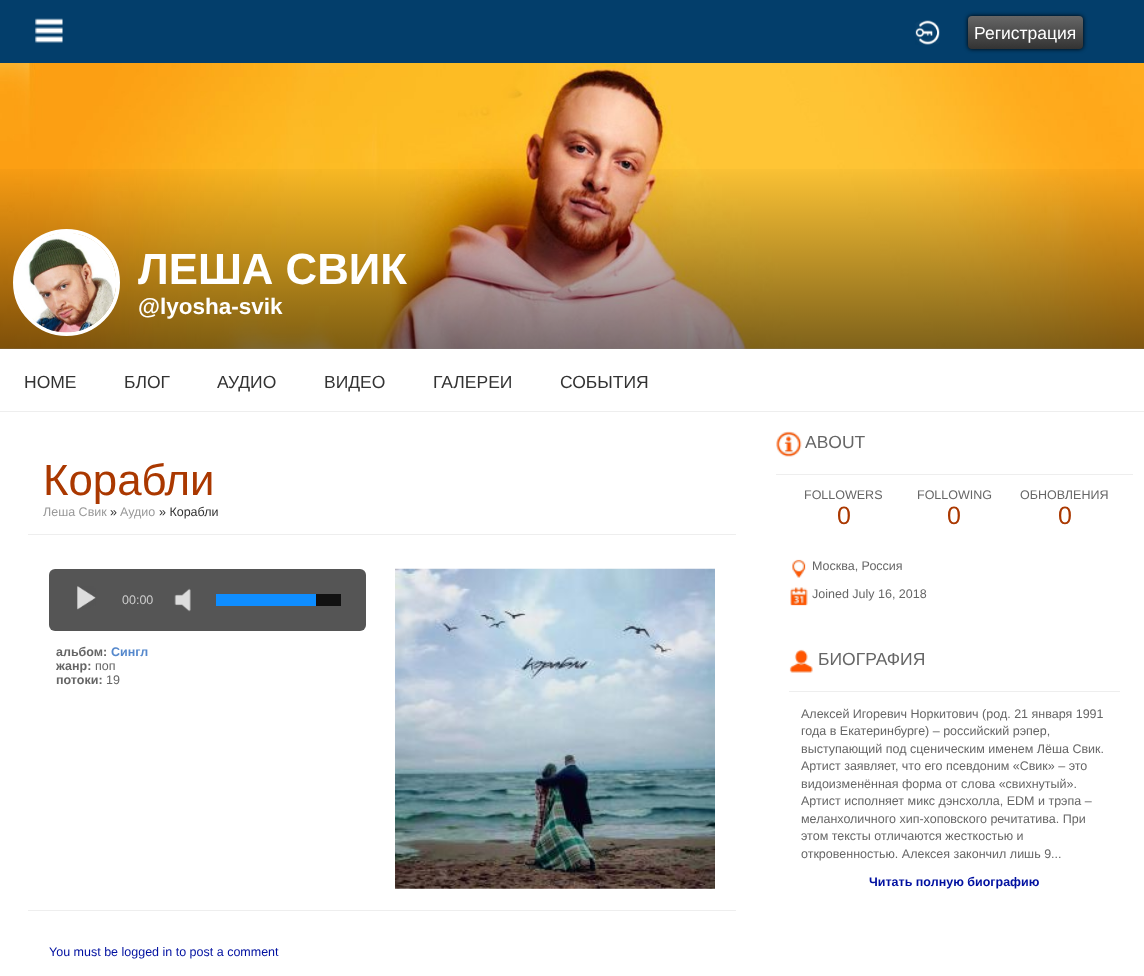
async function draw(canvas) {
	canvas.width = 1144;
	canvas.height = 976;
	const c = canvas.getContext('2d');
	c.miterLimit = 4;
	c.fontKerning = 'normal';
	async function loadImage(src) {
		const img = new Image();
		img.src = src;
		await img.decode();
		return img;
	}
	let gradient;

	c.fillStyle = '#fff';
	c.fillRect(0, 0, 1144, 976);
	c.fillStyle = '#033e6b';
	c.fillRect(0, 0, 1144, 63);
	c.drawImage(await loadImage('img1.png'), 35, 18, 28, 25);
	c.drawImage(await loadImage('img2.png'), 915, 20, 25, 25);
	c.fillStyle = '#000';
	c.filter = 'blur(2px)';
	c.beginPath();
	c.roundRect(968, 16, 115, 33, 4);
	c.fill();
	c.filter = 'none';
	gradient = c.createLinearGradient(1025, 16, 1025, 49);
	gradient.addColorStop(0, '#666');
	gradient.addColorStop(1, '#333');
	c.fillStyle = gradient;
	c.beginPath();
	c.roundRect(968, 16, 115, 33, 4);
	c.fill();
	c.font = '17.5px Liberation Sans';
	c.fillStyle = '#fff';
	c.fillText('Регистрация', 974, 39);
	c.drawImage(await loadImage('img3.png'), 0, 63, 1144, 286);
	gradient = c.createLinearGradient(573, 161, 573, 349);
	gradient.addColorStop(0, '#00000000');
	gradient.addColorStop(1, '#00000080');
	c.fillStyle = gradient;
	c.fillRect(0, 169, 1144, 180);
	c.beginPath();
	c.arc(66.5, 282.5, 51.5, 0, 2 * Math.PI);
	c.strokeStyle = '#fff';
	c.lineWidth = 4;
	c.stroke();
	c.drawImage(await loadImage('img4.png'), 17, 233, 99, 100);
	c.font = 'bold 43.75px Liberation Sans';
	c.fillStyle = '#fff';
	c.fillText('ЛЕША СВИК', 138, 284);
	c.font = 'bold 22.5px Liberation Sans';
	c.fillText('@lyosha-svik', 138, 314);
	c.fillStyle = '#eee';
	c.fillRect(0, 411, 1144, 1);
	c.font = '17.5px Liberation Sans';
	c.fillStyle = '#333';
	for (const [text, x, y] of [
		['HOME', 24, 388],
		['БЛОГ', 124, 388],
		['АУДИО', 217, 388],
		['ВИДЕО', 324, 388],
		['ГАЛЕРЕИ', 433, 388],
		['СОБЫТИЯ', 560, 388],
	]) {
		c.fillText(text, x, y);
	}
	c.fillStyle = '#eee';
	c.fillRect(28, 534, 708, 1);
	c.font = '43.75px Liberation Sans';
	c.fillStyle = '#aa3800';
	c.fillText('Корабли', 43, 495);
	c.font = '12.5px Liberation Sans';
	c.fillStyle = '#999';
	c.fillText('Леша Свик', 43, 516);
	c.fillStyle = '#333';
	c.fillText('»', 110, 516);
	c.fillStyle = '#999';
	c.fillText('Аудио', 120, 516);
	c.fillStyle = '#333';
	c.fillText('» Корабли', 159, 516);
	c.fillStyle = '#eee';
	c.fillRect(28, 910, 708, 1);
	c.fillStyle = '#555';
	c.beginPath();
	c.roundRect(49, 569, 317, 62, 6);
	c.fill();
	c.drawImage(await loadImage('img5.png'), 77, 586, 19, 24);
	c.fillStyle = '#ccc';
	c.fillText('00:00', 122, 604);
	c.drawImage(await loadImage('img6.png'), 174, 588, 17, 24);
	c.fillStyle = '#111';
	c.fillRect(316, 594, 25, 12);
	c.fillStyle = '#0e8dff';
	c.fillRect(216, 594, 100, 12);
	c.font = 'bold 12.5px Liberation Sans';
	c.fillStyle = '#666';
	c.fillText('альбом:', 56, 656);
	c.fillStyle = '#58c';
	c.fillText('Сингл', 111, 656);
	c.fillStyle = '#666';
	c.fillText('жанр:', 56, 670);
	c.font = '12.5px Liberation Sans';
	c.fillText('поп', 95, 670);
	c.font = 'bold 12.5px Liberation Sans';
	c.fillText('потоки:', 56, 684);
	c.font = '12.5px Liberation Sans';
	c.fillText('19', 106, 684);
	c.drawImage(await loadImage('img7.png'), 395, 568, 320, 321);
	c.fillStyle = '#0010a0';
	c.fillText('You must be logged in to post a comment', 49, 956);
	c.fillStyle = '#eee';
	c.fillRect(776, 474, 357, 1);
	c.drawImage(await loadImage('img8.png'), 776, 431, 26, 26);
	c.font = '17.5px Liberation Sans';
	c.fillStyle = '#666';
	c.fillText('ABOUT', 805, 448);
	c.font = '12.5px Liberation Sans';
	c.fillText('FOLLOWERS', 804, 499);
	c.font = '25px Liberation Sans';
	c.fillStyle = '#aa3800';
	c.fillText('0', 837, 524);
	c.font = '12.5px Liberation Sans';
	c.fillStyle = '#666';
	c.fillText('FOLLOWING', 917, 499);
	c.font = '25px Liberation Sans';
	c.fillStyle = '#aa3800';
	c.fillText('0', 947, 524);
	c.font = '12.5px Liberation Sans';
	c.fillStyle = '#666';
	c.fillText('ОБНОВЛЕНИЯ', 1020, 499);
	c.font = '25px Liberation Sans';
	c.fillStyle = '#aa3800';
	c.fillText('0', 1058, 524);
	c.drawImage(await loadImage('img9.png'), 792, 559, 14, 19);
	c.font = '12.5px Liberation Sans';
	c.fillStyle = '#666';
	c.fillText('Москва, Россия', 812, 570);
	c.drawImage(await loadImage('img10.png'), 790, 587, 18, 19);
	c.fillText('Joined July 16, 2018', 812, 598);
	c.fillStyle = '#eee';
	c.fillRect(789, 691, 331, 1);
	c.drawImage(await loadImage('img11.png'), 789, 649, 24, 24);
	c.font = '17.5px Liberation Sans';
	c.fillStyle = '#666';
	c.fillText('БИОГРАФИЯ', 818, 665);
	c.font = '12.5px Liberation Sans';
	for (const [text, x, y] of [
		['Алексей Игоревич Норкитович (род. 21 января 1991', 801, 718],
		['года в Екатеринбурге) – российский рэпер,', 801, 735],
		['выступающий под сценическим именем Лёша Свик.', 801, 753],
		['Артист заявляет, что его псевдоним «Свик» – это', 801, 770],
		['видоизменённая форма от слова «свихнутый».', 801, 788],
		['Артист исполняет микс дэнсхолла, EDM и трэпа –', 801, 805],
		['меланхоличного хип-хоповского речитатива. При', 801, 823],
		['этом тексты отличаются жесткостью и', 801, 840],
		['откровенностью. Алексея закончил лишь 9...', 801, 858],
	]) {
		c.fillText(text, x, y);
	}
	c.font = 'bold 12.5px Liberation Sans';
	c.fillStyle = '#0010a0';
	c.fillText('Читать полную биографию', 869, 886);
}

draw(document.querySelector('canvas'));
